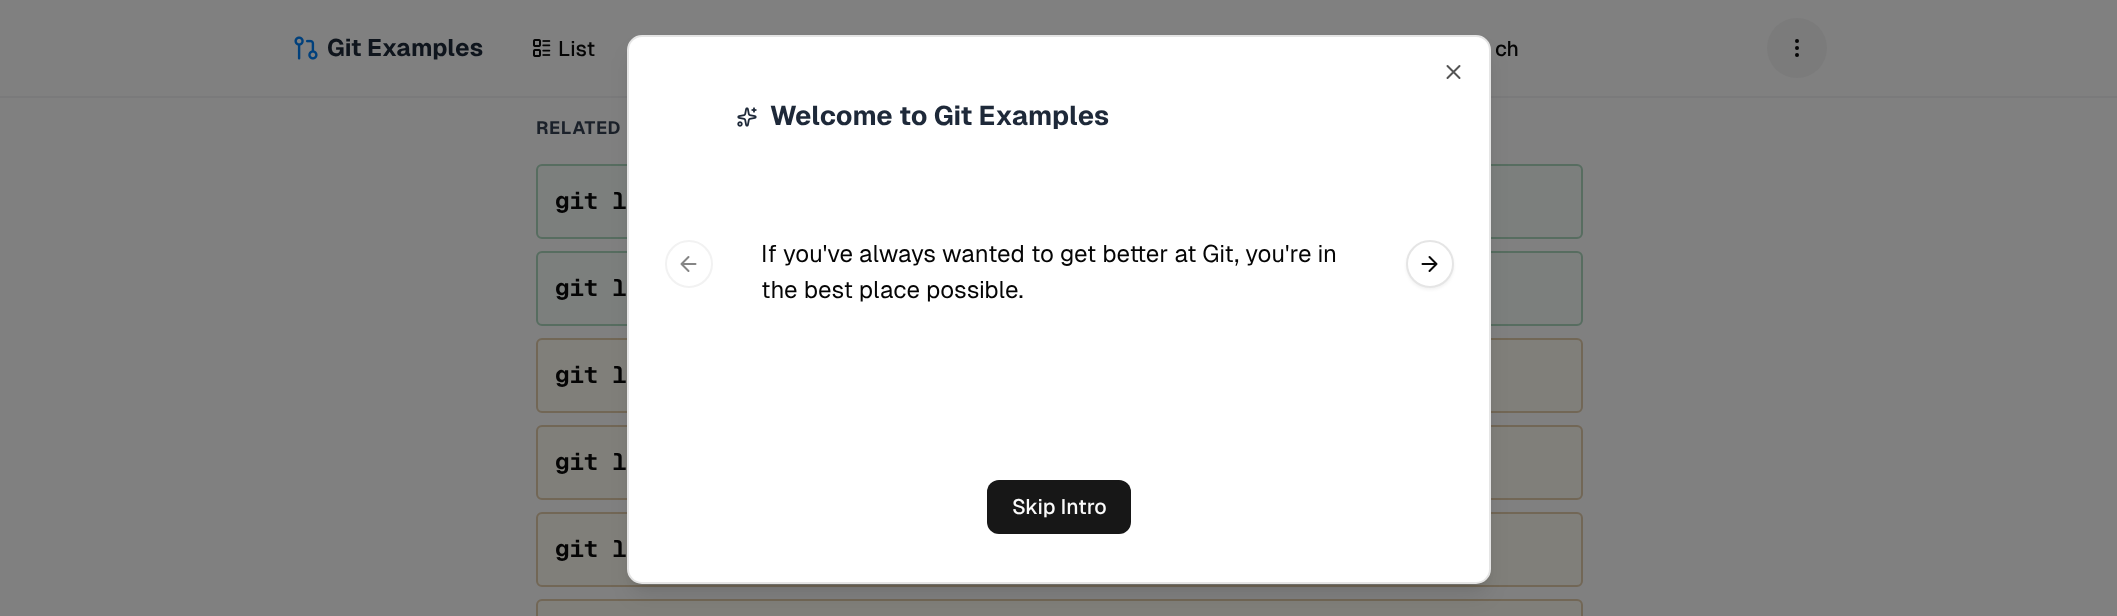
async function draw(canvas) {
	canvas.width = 2117;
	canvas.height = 616;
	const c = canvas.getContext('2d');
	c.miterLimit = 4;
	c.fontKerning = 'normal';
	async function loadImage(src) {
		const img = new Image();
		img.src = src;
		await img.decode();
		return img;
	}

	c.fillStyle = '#808080';
	c.fillRect(0, 0, 2117, 616);
	c.fillStyle = '#7a7a7b';
	c.fillRect(0, 96, 2117, 2);
	c.drawImage(await loadImage('img1.png'), 294, 36, 24, 24);
	c.font = 'bold 24px Geist';
	c.fillStyle = '#0f151d';
	c.fillText('Git Examples', 327, 56);
	c.drawImage(await loadImage('img2.png'), 533, 39, 18, 18);
	c.font = '500 21px Geist';
	c.fillStyle = '#050505';
	c.fillText('List', 558, 56);
	c.fillText('ch', 1495, 56);
	c.fillStyle = '#7b7b7b';
	c.beginPath();
	c.arc(1797, 48, 30, 0, 2 * Math.PI);
	c.fill();
	c.beginPath();
	c.arc(1797, 48, 1, 0, 2 * Math.PI);
	c.strokeStyle = '#050505';
	c.lineWidth = 2;
	c.stroke();
	c.beginPath();
	c.arc(1797, 41, 1, 0, 2 * Math.PI);
	c.stroke();
	c.beginPath();
	c.arc(1797, 55, 1, 0, 2 * Math.PI);
	c.stroke();
	c.letterSpacing = '0.5px';
	c.font = 'bold 18px Geist';
	c.fillStyle = '#1b212a';
	c.fillText('RELATED', 536, 134);
	c.fillStyle = '#7c7f7d';
	c.beginPath();
	c.roundRect(537, 165, 1045, 73, 5);
	c.fill();
	c.strokeStyle = '#576d60';
	c.stroke();
	c.letterSpacing = '0px';
	c.font = 'bold 24px Geist Mono';
	c.fillStyle = '#050505';
	c.fillText('git l', 555, 209);
	c.fillStyle = '#7c7f7d';
	c.beginPath();
	c.roundRect(537, 252, 1045, 73, 5);
	c.fill();
	c.stroke();
	c.fillStyle = '#050505';
	c.fillText('git l', 555, 296);
	c.fillStyle = '#807f7a';
	c.beginPath();
	c.roundRect(537, 339, 1045, 73, 5);
	c.fill();
	c.strokeStyle = '#726756';
	c.stroke();
	c.fillStyle = '#050505';
	c.fillText('git l', 555, 383);
	c.fillStyle = '#807f7a';
	c.beginPath();
	c.roundRect(537, 426, 1045, 73, 5);
	c.fill();
	c.stroke();
	c.fillStyle = '#050505';
	c.fillText('git l', 555, 470);
	c.fillStyle = '#807f7a';
	c.beginPath();
	c.roundRect(537, 513, 1045, 73, 5);
	c.fill();
	c.stroke();
	c.fillStyle = '#050505';
	c.fillText('git l', 555, 557);
	c.fillStyle = '#807f7a';
	c.beginPath();
	c.roundRect(537, 600, 1045, 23, 5);
	c.fill();
	c.stroke();
	c.fillStyle = '#0000001a';
	c.filter = 'blur(4.5px)';
	c.beginPath();
	c.roundRect(633, 47, 852, 537, 9);
	c.fill();
	c.filter = 'none';
	c.filter = 'blur(11px)';
	c.beginPath();
	c.roundRect(632, 54, 855, 540, 11);
	c.fill();
	c.filter = 'none';
	c.fillStyle = '#fff';
	c.beginPath();
	c.roundRect(628, 36, 862, 547, 14);
	c.fill();
	c.strokeStyle = '#e5e5e5';
	c.stroke();
	c.beginPath();
	c.moveTo(1459.5, 66);
	c.lineTo(1447.5, 78);
	c.moveTo(1447.5, 66);
	c.lineTo(1459.5, 78);
	c.strokeStyle = '#545454';
	c.lineCap = 'round';
	c.lineJoin = 'round';
	c.stroke();
	c.beginPath();
	c.arc(689, 264, 23, 0, 2 * Math.PI);
	c.strokeStyle = '#f2f2f2';
	c.stroke();
	c.beginPath();
	c.moveTo(688.5, 271);
	c.lineTo(681.5, 264);
	c.lineTo(688.5, 257);
	c.moveTo(695.5, 264);
	c.lineTo(681.5, 264);
	c.strokeStyle = '#858585';
	c.stroke();
	c.drawImage(await loadImage('img3.png'), 737, 107, 20, 20);
	c.font = 'bold 27px Geist';
	c.fillStyle = '#1e2939';
	c.fillText('Welcome to Git Examples', 770, 125);
	c.font = '24px Geist';
	c.fillStyle = '#050505';
	c.fillText('If you\'ve always wanted to get better at Git, you\'re in', 761, 262);
	c.fillText('the best place possible.', 761, 298);
	c.fillStyle = '#0000000d';
	c.filter = 'blur(1.5px)';
	c.beginPath();
	c.roundRect(1406, 242, 48, 48, 24);
	c.fill();
	c.filter = 'none';
	c.fillStyle = '#fff';
	c.beginPath();
	c.arc(1430, 264, 23, 0, 2 * Math.PI);
	c.fill();
	c.strokeStyle = '#e5e5e5';
	c.stroke();
	c.beginPath();
	c.moveTo(1422.5, 264);
	c.lineTo(1436.5, 264);
	c.moveTo(1429.5, 257);
	c.lineTo(1436.5, 264);
	c.lineTo(1429.5, 271);
	c.strokeStyle = '#0a0a0a';
	c.stroke();
	c.fillStyle = '#171717';
	c.beginPath();
	c.roundRect(987, 480, 144, 54, 12);
	c.fill();
	c.font = '500 21px Geist';
	c.fillStyle = '#fafafa';
	c.fillText('Skip Intro', 1012, 514);
}

draw(document.querySelector('canvas'));
